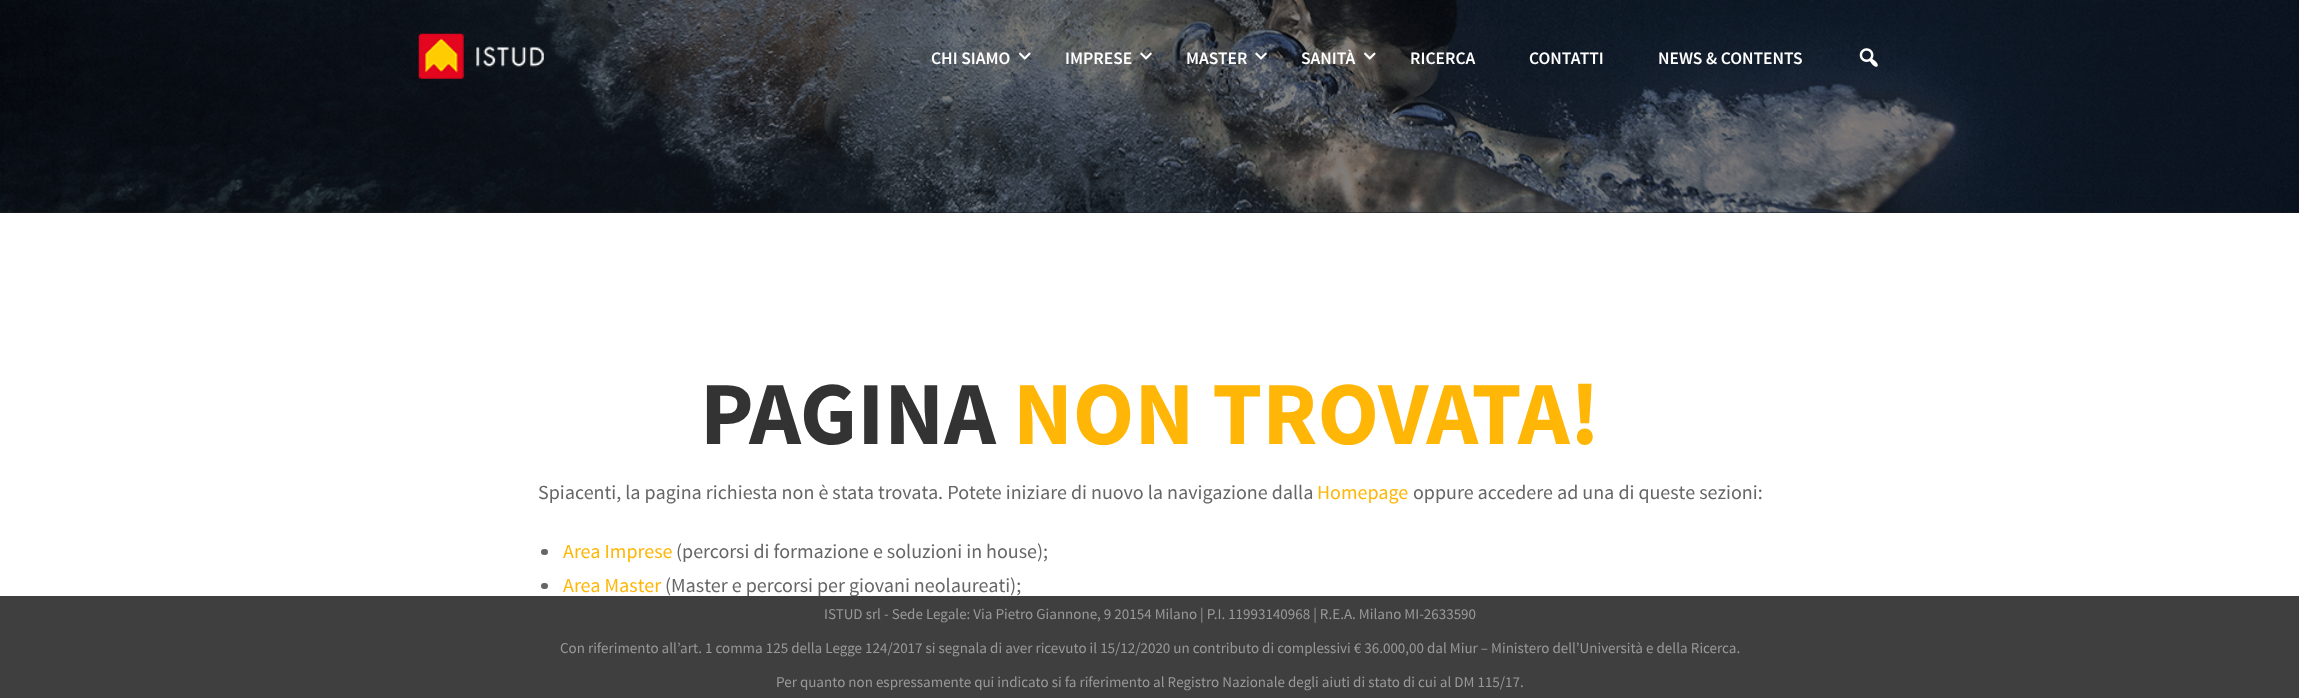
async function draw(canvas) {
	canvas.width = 2299;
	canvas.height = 698;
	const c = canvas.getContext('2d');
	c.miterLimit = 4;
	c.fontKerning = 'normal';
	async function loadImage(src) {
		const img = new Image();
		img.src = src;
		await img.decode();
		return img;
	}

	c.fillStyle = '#fff';
	c.fillRect(0, 0, 2299, 698);
	c.fillStyle = '#1c1f22';
	c.fillRect(0, 212, 2299, 1);
	c.drawImage(await loadImage('img7.png'), 0, 0, 2299, 213);
	c.drawImage(await loadImage('img1.png'), 418, 33, 126, 46);
	c.font = '600 17.5px Source Sans Pro';
	c.fillStyle = '#fff';
	c.fillText('CHI SIAMO', 931, 64);
	c.drawImage(await loadImage('img2.png'), 1019, 52, 12, 8);
	c.fillText('IMPRESE', 1065, 64);
	c.drawImage(await loadImage('img3.png'), 1140, 52, 12, 8);
	c.fillText('MASTER', 1186, 64);
	c.drawImage(await loadImage('img4.png'), 1255, 52, 12, 8);
	c.fillText('SANITÀ', 1301, 64);
	c.drawImage(await loadImage('img5.png'), 1364, 52, 12, 8);
	for (const [text, x, y] of [
		['RICERCA', 1410, 64],
		['CONTATTI', 1529, 64],
		['NEWS & CONTENTS', 1658, 64],
	]) {
		c.fillText(text, x, y);
	}
	c.drawImage(await loadImage('img6.png'), 1859, 48, 19, 19);
	c.font = 'bold 90px Source Sans Pro';
	c.fillStyle = '#333';
	c.fillText('PAGINA', 700, 444);
	c.fillStyle = '#ffb606';
	c.fillText('NON TROVATA!', 1013, 444);
	c.font = '20px Source Sans Pro';
	c.fillStyle = '#666';
	c.fillText('Spiacenti, la pagina richiesta non è stata trovata. Potete iniziare di nuovo la navigazione dalla', 538, 499);
	c.fillStyle = '#ffb606';
	c.fillText('Homepage', 1317, 499);
	c.fillStyle = '#666';
	c.fillText('oppure accedere ad una di queste sezioni:', 1413, 499);
	c.beginPath();
	c.roundRect(541, 549, 7, 6, 3);
	c.fill();
	c.fillStyle = '#ffb606';
	c.fillText('Area Imprese', 563, 558);
	c.fillStyle = '#666';
	c.fillText('(percorsi di formazione e soluzioni in house);', 676, 558);
	c.beginPath();
	c.roundRect(541, 583, 7, 6, 3);
	c.fill();
	c.fillStyle = '#ffb606';
	c.fillText('Area Master', 563, 592);
	c.fillStyle = '#666';
	c.fillText('(Master e percorsi per giovani neolaureati);', 665, 592);
	c.fillStyle = '#3f3f3f';
	c.fillRect(0, 596, 2299, 102);
	c.font = '15px Source Sans Pro';
	c.fillStyle = '#999';
	for (const [text, x, y] of [
		['ISTUD srl - Sede Legale: Via Pietro Giannone, 9 20154 Milano | P.I. 11993140968 | R.E.A. Milano MI-2633590', 824, 619],
		['Con riferimento all’art. 1 comma 125 della Legge 124/2017 si segnala di aver ricevuto il 15/12/2020 un contributo di complessivi € 36.000,00 dal Miur – Ministero dell’Università e della Ricerca.', 560, 653],
		['Per quanto non espressamente qui indicato si fa riferimento al Registro Nazionale degli aiuti di stato di cui al DM 115/17.', 776, 687],
	]) {
		c.fillText(text, x, y);
	}
}

draw(document.querySelector('canvas'));
